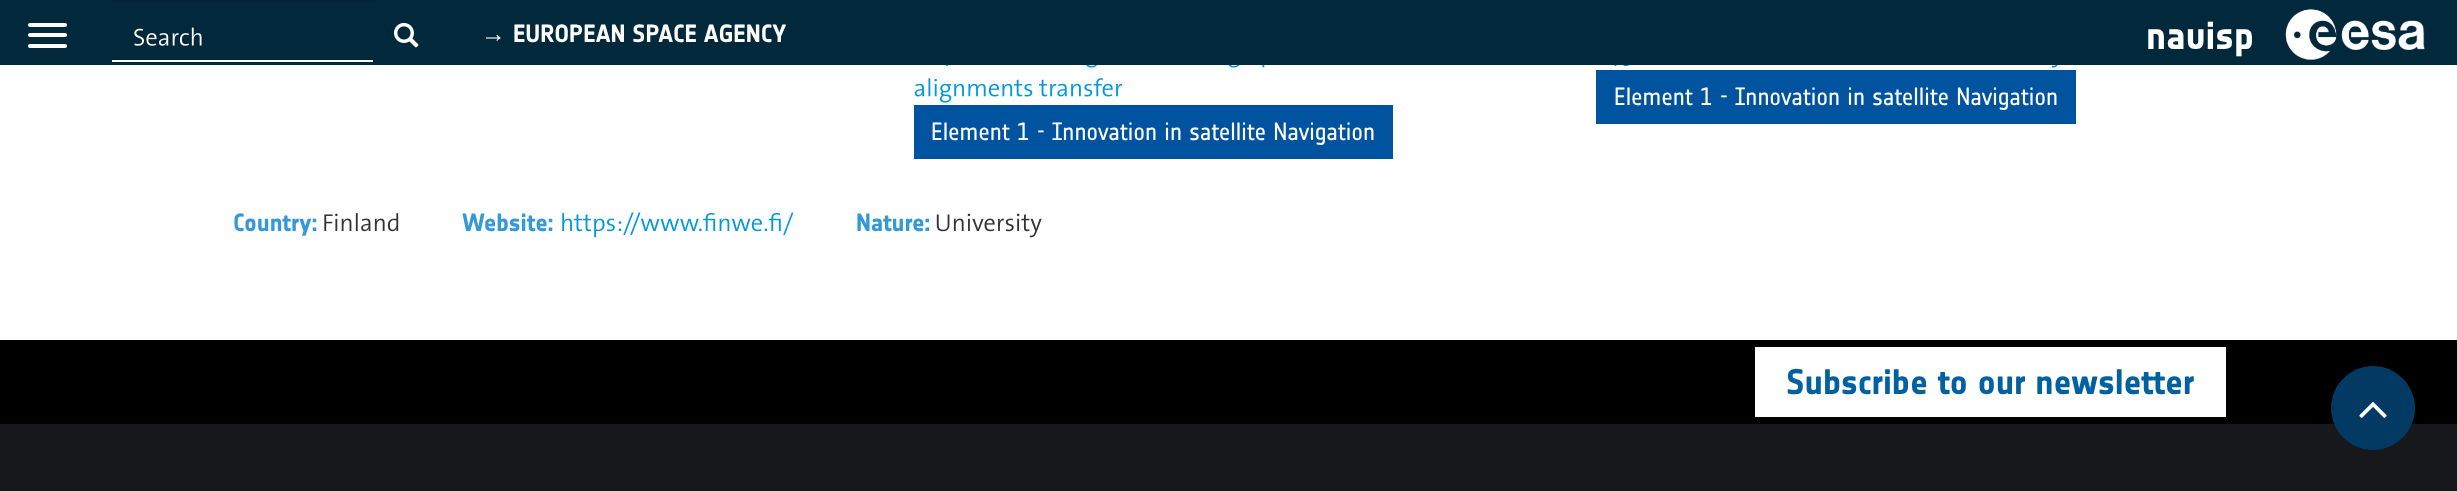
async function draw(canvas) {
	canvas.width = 2457;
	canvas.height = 491;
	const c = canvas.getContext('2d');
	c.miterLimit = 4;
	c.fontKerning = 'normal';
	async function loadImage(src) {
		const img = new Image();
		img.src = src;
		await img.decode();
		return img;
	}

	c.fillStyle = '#fff';
	c.fillRect(0, 0, 2457, 491);
	c.fillStyle = '#01283b';
	c.fillRect(0, 0, 2457, 65);
	c.fillStyle = '#fff';
	c.beginPath();
	c.roundRect(28, 23, 39, 4, 2);
	c.fill();
	c.beginPath();
	c.roundRect(28, 33, 39, 4, 2);
	c.fill();
	c.beginPath();
	c.roundRect(28, 44, 39, 4, 2);
	c.fill();
	c.fillRect(112, 60, 261, 2);
	c.fillStyle = '#012537';
	c.fillRect(112, 0, 263, 2);
	c.drawImage(await loadImage('img1.png'), 134, 27, 68, 19);
	c.drawImage(await loadImage('img2.png'), 393, 22, 26, 26);
	c.font = '24.5px Liberation Sans';
	c.fillStyle = '#fff';
	c.fillText('→', 481, 42);
	c.font = 'bold 24.5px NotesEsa';
	c.fillText('EUROPEAN SPACE AGENCY', 513, 42);
	c.font = 'bold 38.5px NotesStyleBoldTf';
	c.fillText('navisp', 2146, 49);
	c.drawImage(await loadImage('img3.png'), 2285, 9, 140, 51);
	c.drawImage(await loadImage('img4.png'), 1614, 65, 444, 3);
	c.fillStyle = '#00549f';
	c.fillRect(1596, 70, 480, 54);
	c.font = '24.5px NotesEsa';
	c.fillStyle = '#fff';
	c.fillText('Element 1 - Innovation in satellite Navigation', 1614, 105);
	c.drawImage(await loadImage('img5.png'), 945, 65, 320, 3);
	c.drawImage(await loadImage('img6.png'), 914, 78, 208, 25);
	c.fillStyle = '#00549f';
	c.fillRect(914, 105, 479, 54);
	c.fillStyle = '#fff';
	c.fillText('Element 1 - Innovation in satellite Navigation', 931, 140);
	c.font = 'bold 24.5px NotesEsa';
	c.fillStyle = '#3498db';
	c.fillText('Country:', 233, 231);
	c.drawImage(await loadImage('img7.png'), 324, 213, 75, 19);
	c.fillText('Website:', 462, 231);
	c.drawImage(await loadImage('img8.png'), 562, 212, 232, 26);
	c.fillText('Nature:', 856, 231);
	c.drawImage(await loadImage('img9.png'), 936, 213, 106, 25);
	c.fillStyle = '#000';
	c.fillRect(0, 340, 2457, 84);
	c.fillStyle = '#fff';
	c.fillRect(1755, 347, 471, 70);
	c.font = 'bold 35px NotesEsa';
	c.fillStyle = '#0061a1';
	c.fillText('Subscribe to our newsletter', 1786, 394);
	c.fillStyle = '#16181c';
	c.fillRect(0, 424, 2457, 67);
	c.fillStyle = '#033a63';
	c.beginPath();
	c.moveTo(2415, 408);
	c.bezierCurveTo(2415, 385, 2396, 366, 2373, 366);
	c.bezierCurveTo(2350, 366, 2331, 385, 2331, 408);
	c.bezierCurveTo(2331, 431, 2350, 450, 2373, 450);
	c.bezierCurveTo(2396, 450, 2415, 431, 2415, 408);
	c.closePath();
	c.fill();
	c.drawImage(await loadImage('img10.png'), 2359, 402, 28, 16);
}

draw(document.querySelector('canvas'));
